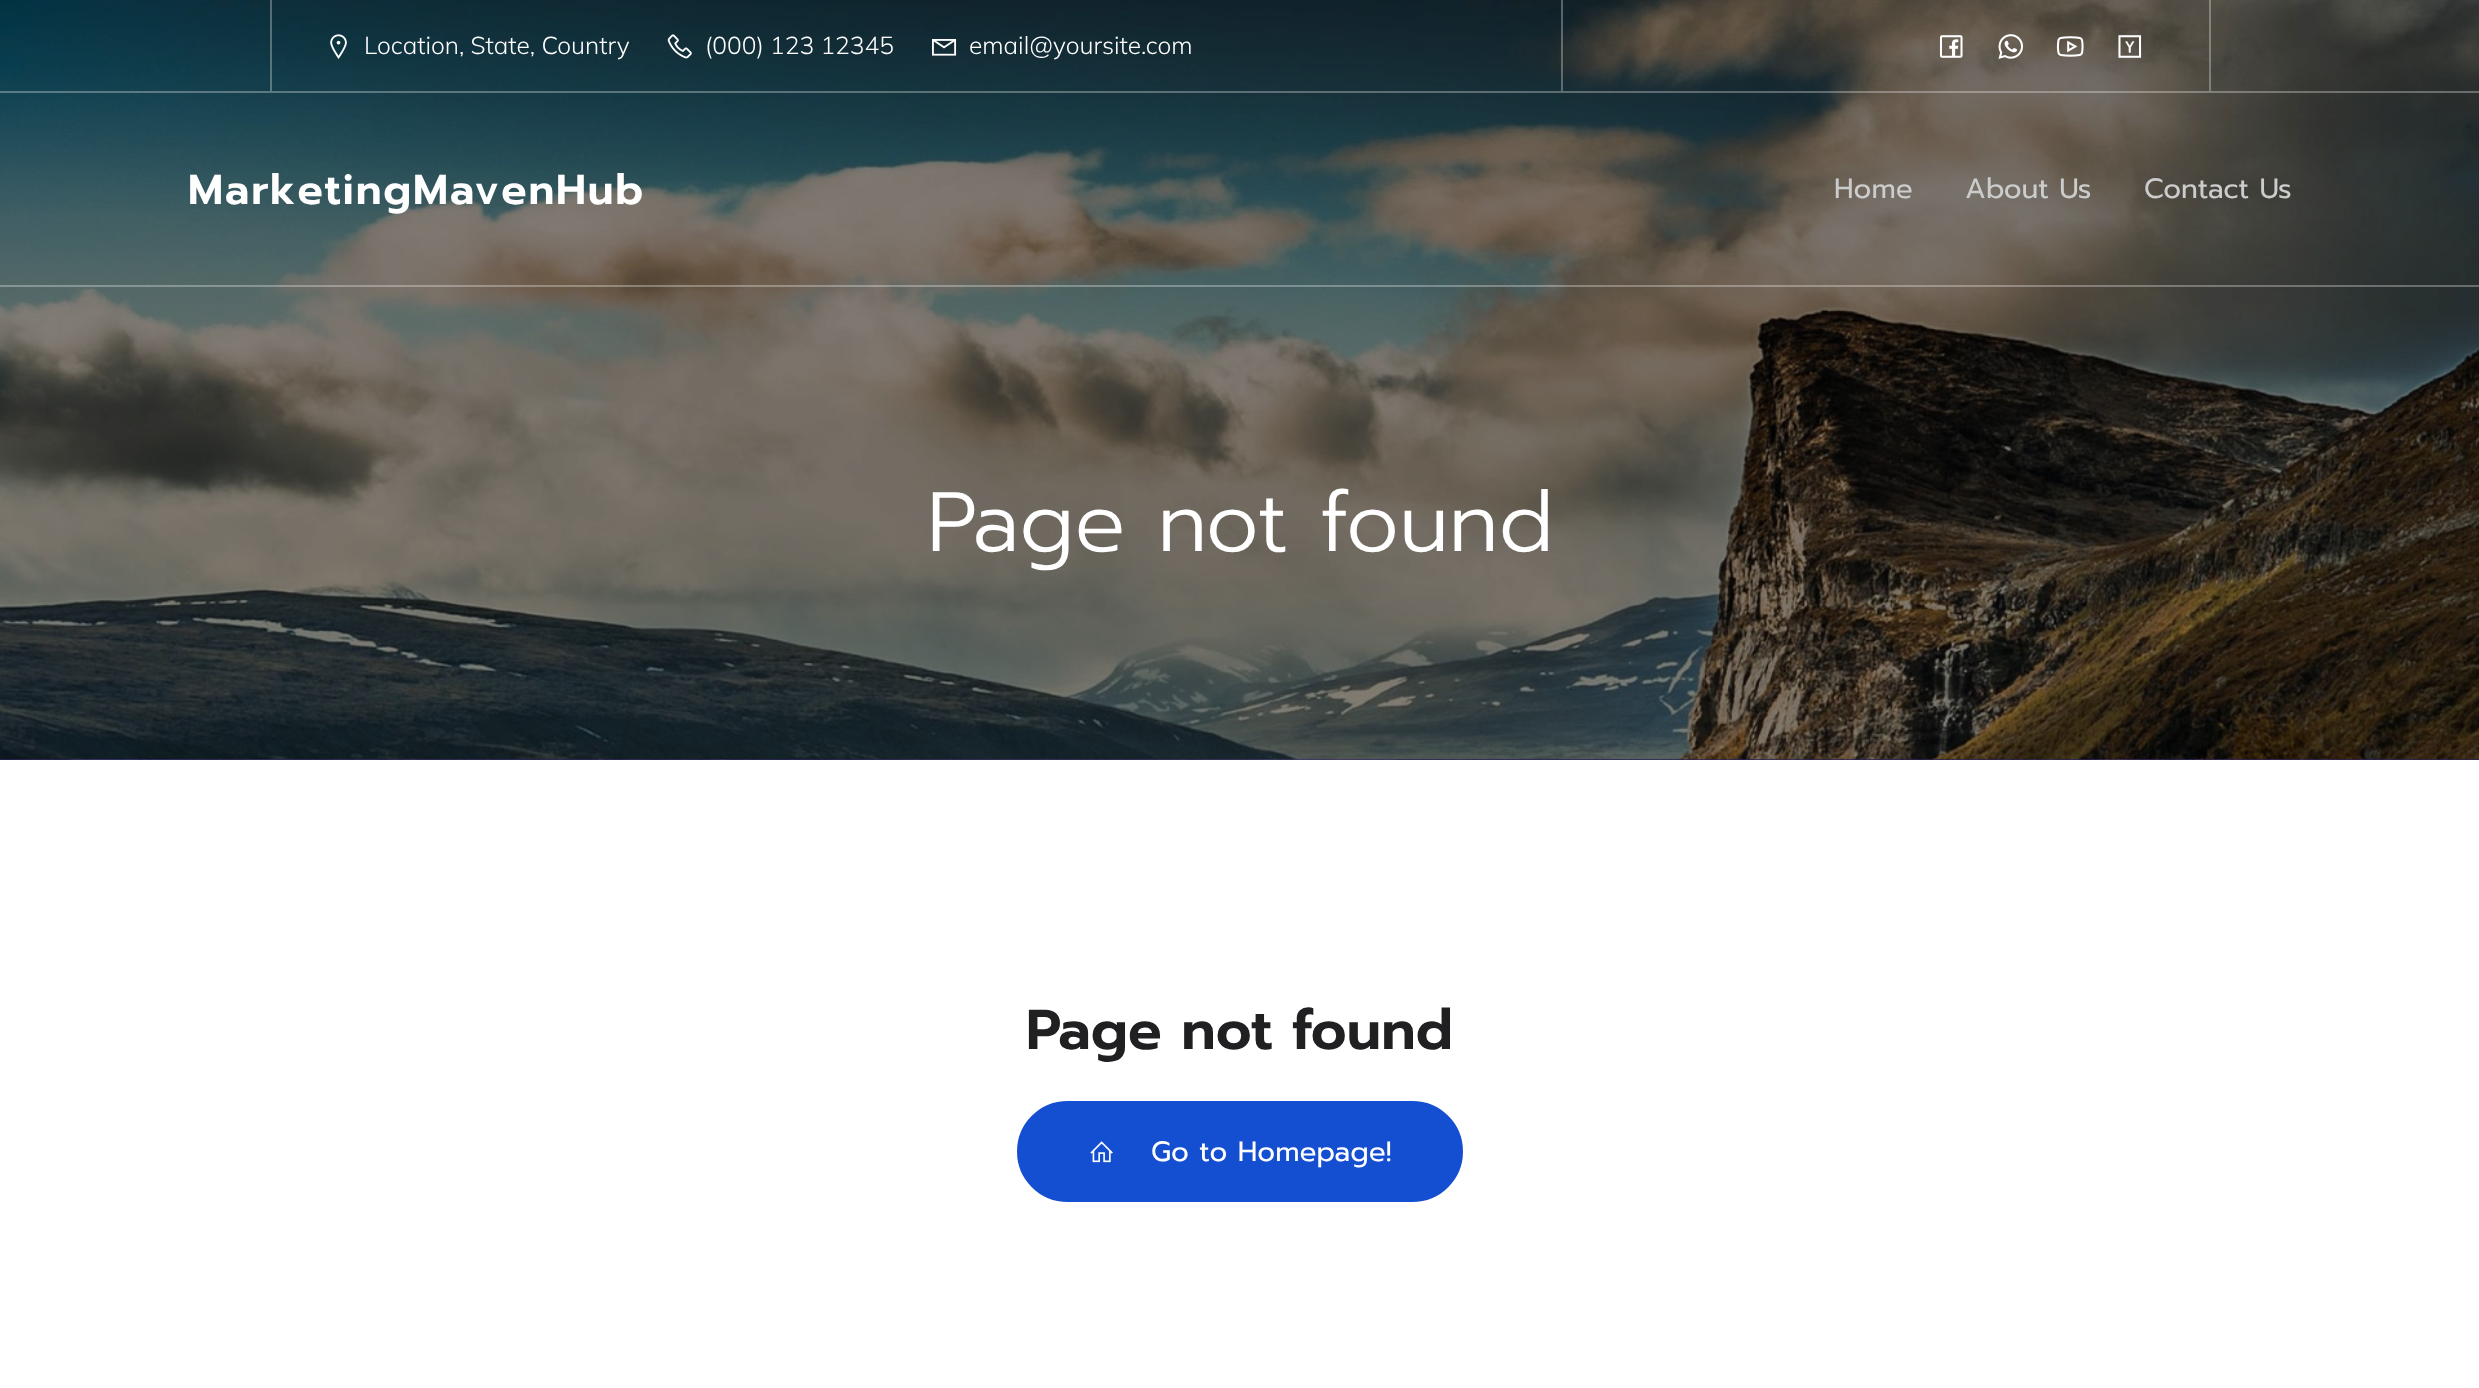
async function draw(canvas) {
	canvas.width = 2479;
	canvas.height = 1388;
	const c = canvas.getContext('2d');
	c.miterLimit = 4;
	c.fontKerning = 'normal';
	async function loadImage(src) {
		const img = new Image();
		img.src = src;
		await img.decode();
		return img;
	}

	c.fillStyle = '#fff';
	c.fillRect(0, 0, 2479, 1388);
	c.fillStyle = '#342a75';
	c.fillRect(0, 759, 2479, 1);
	c.drawImage(await loadImage('img9.png'), 0, 759, 2479, 1);
	c.drawImage(await loadImage('img8.png'), 0, 0, 2479, 760);
	for (const [x, y, w, h, color] of [
		[0, 91, 2479, 2, '#ffffff4d'],
		[1561, 0, 2, 91, '#ffffff4d'],
		[270, 0, 2, 91, '#ffffff4d'],
	]) {
		c.fillStyle = color;
		c.fillRect(x, y, w, h);
	}
	c.drawImage(await loadImage('img1.png'), 330, 34, 17, 25);
	c.font = '300 24.5px Mulish';
	c.fillStyle = '#fff';
	c.fillText('Location, State, Country', 364, 54);
	c.drawImage(await loadImage('img2.png'), 667, 34, 25, 25);
	c.fillText('(000) 123 12345', 705, 54);
	c.drawImage(await loadImage('img3.png'), 932, 39, 25, 17);
	c.fillText('email@yoursite.com', 969, 54);
	c.fillStyle = '#ffffff4d';
	c.fillRect(2209, 0, 2, 91);
	c.drawImage(await loadImage('img4.png'), 1939, 35, 24, 23);
	c.drawImage(await loadImage('img5.png'), 1998, 34, 26, 25);
	c.drawImage(await loadImage('img6.png'), 2056, 36, 28, 21);
	c.drawImage(await loadImage('img7.png'), 2118, 35, 24, 23);
	c.fillRect(0, 285, 2479, 2);
	c.letterSpacing = '1.75px';
	c.font = '600 42px Prompt';
	c.fillStyle = '#fff';
	c.fillText('MarketingMavenHub', 188, 204);
	c.letterSpacing = '0px';
	c.font = '28px Prompt';
	c.fillStyle = '#ccc';
	for (const [text, x, y] of [
		['Home', 1834, 198],
		['About Us', 1965, 198],
		['Contact Us', 2144, 198],
	]) {
		c.fillText(text, x, y);
	}
	c.font = '300 84px Prompt';
	c.fillStyle = '#fff';
	c.fillText('Page not found', 927, 551);
	c.font = '600 56px Prompt';
	c.fillStyle = '#202022';
	c.fillText('Page not found', 1026, 1049);
	c.fillStyle = '#144fd1';
	c.beginPath();
	c.roundRect(1018, 1102, 444, 99, 49.5);
	c.fill();
	c.strokeStyle = '#144fd1';
	c.lineWidth = 2;
	c.stroke();
	c.drawImage(await loadImage('img10.png'), 1090, 1141, 23, 22);
	c.font = '28px Prompt';
	c.fillStyle = '#fff';
	c.fillText('Go to Homepage!', 1151, 1161);
}

draw(document.querySelector('canvas'));
